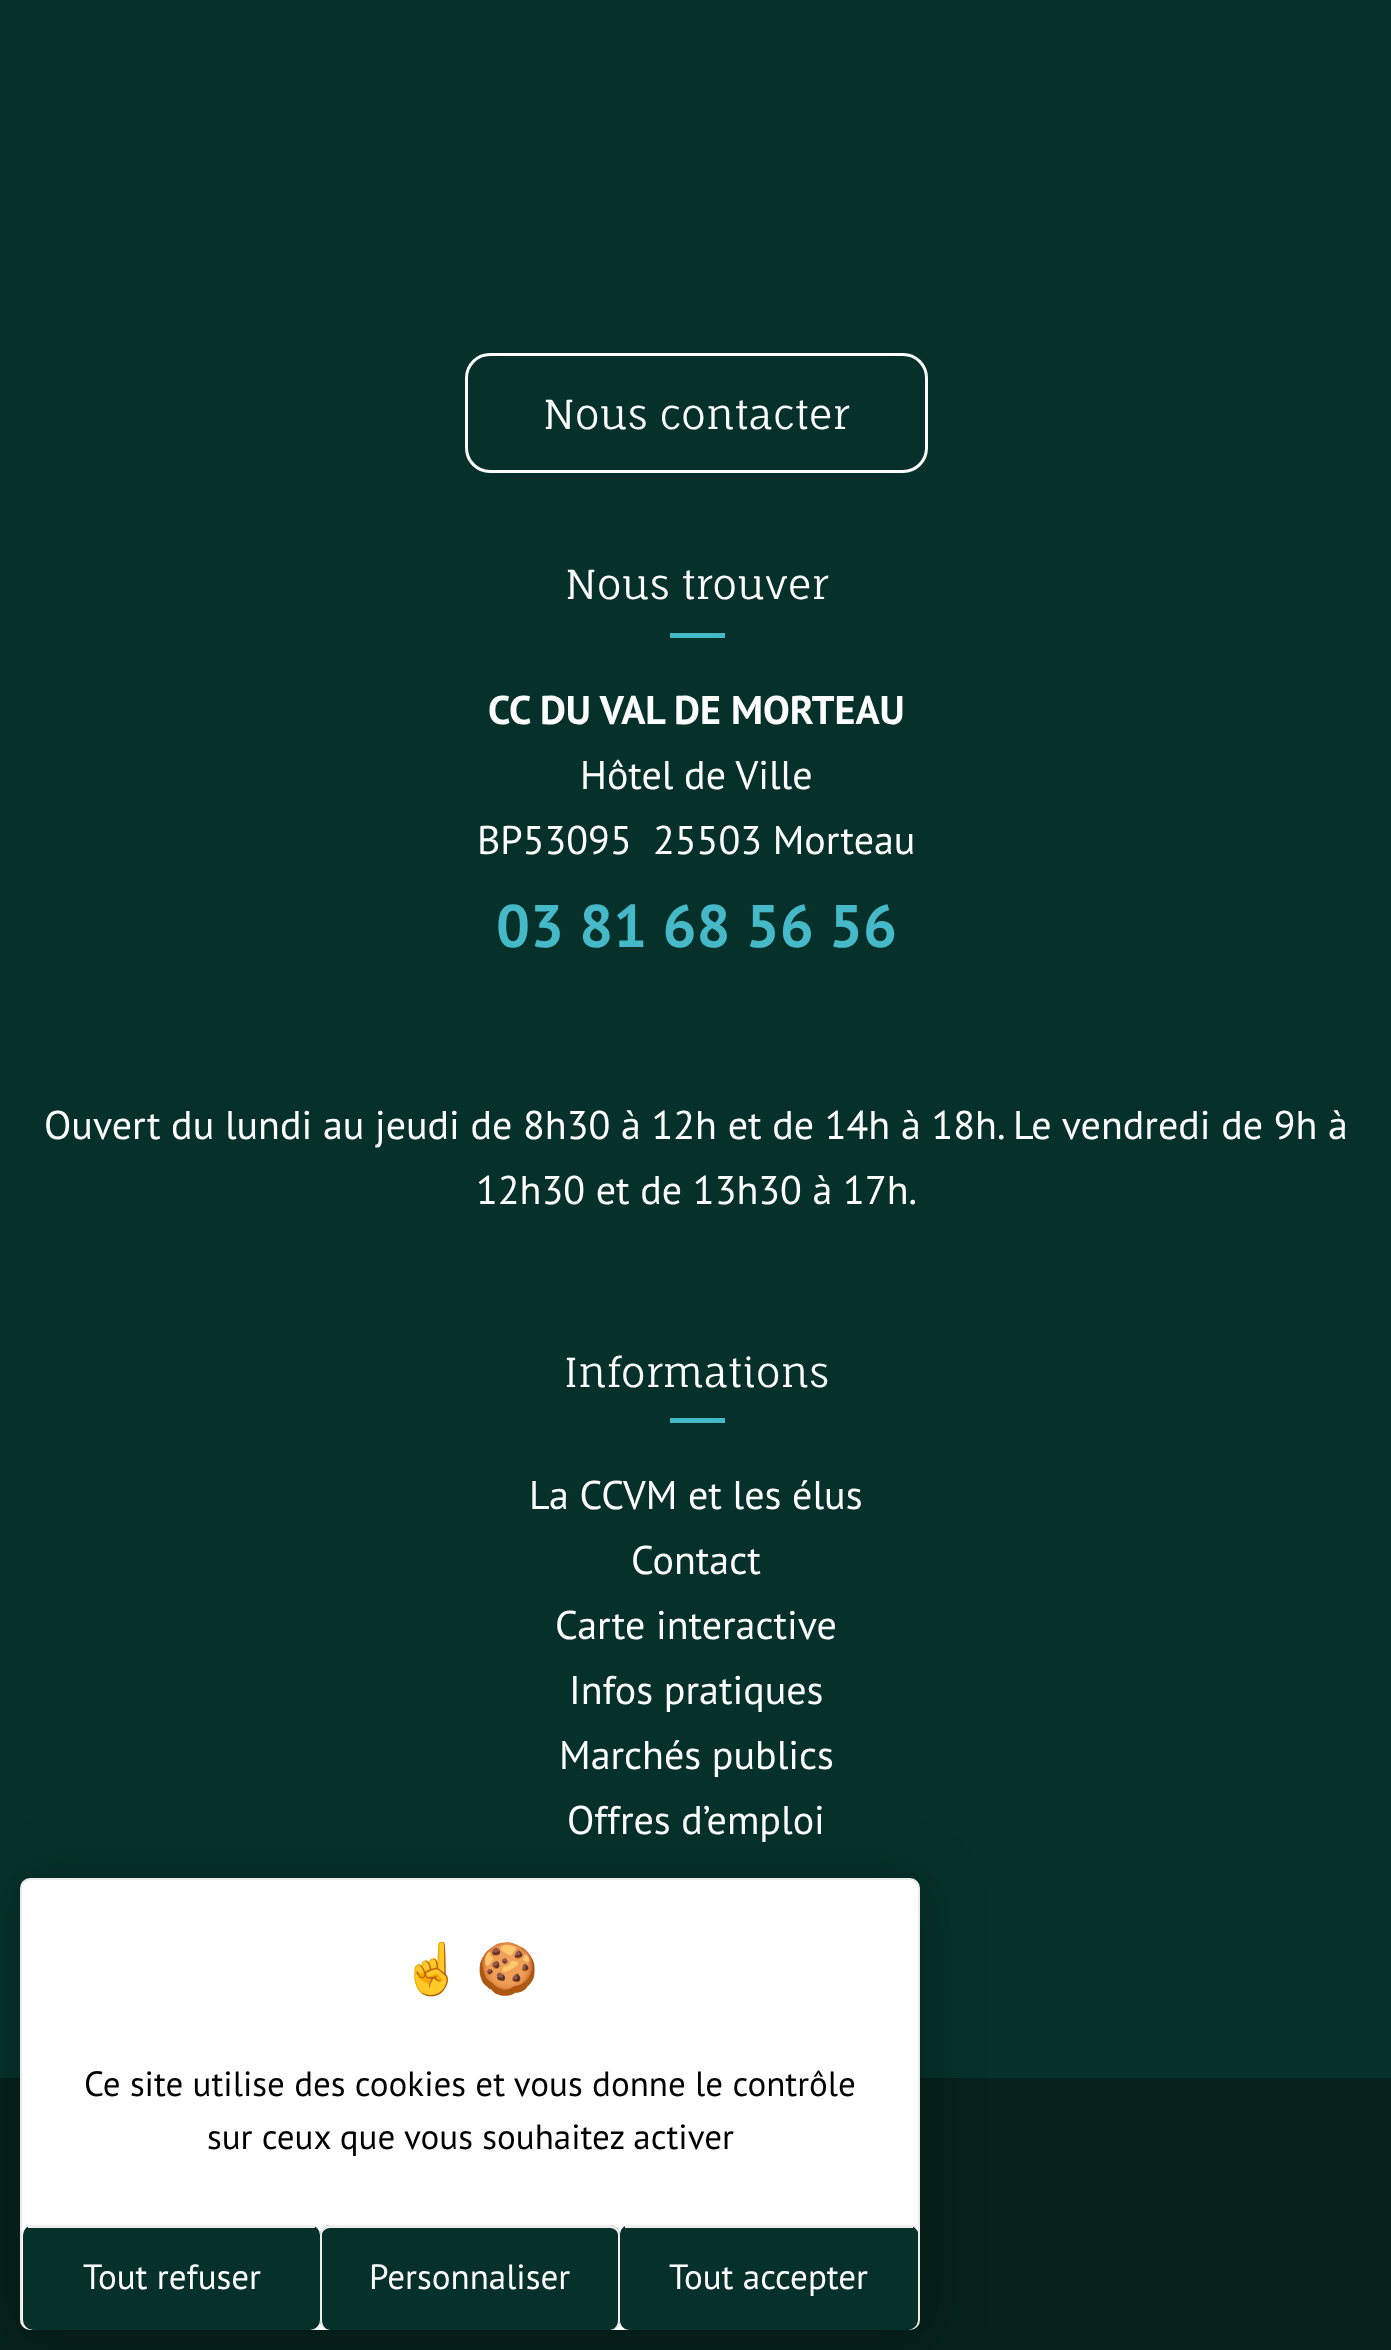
async function draw(canvas) {
	canvas.width = 1391;
	canvas.height = 2350;
	const c = canvas.getContext('2d');
	c.miterLimit = 4;
	c.fontKerning = 'normal';

	c.fillStyle = '#07211c';
	c.fillRect(0, 0, 1391, 2350);
	c.fillStyle = '#06312a';
	c.fillRect(0, 0, 1391, 2078);
	c.beginPath();
	c.roundRect(466.5, 354.5, 460, 117, 23.5);
	c.strokeStyle = '#fff';
	c.lineWidth = 3;
	c.stroke();
	c.font = '40px Fauna One';
	c.fillStyle = '#fff';
	c.fillText('Nous contacter', 543, 429);
	c.fillText('Nous trouver', 565, 599);
	c.fillStyle = '#46b9c8';
	c.fillRect(670, 633, 55, 5);
	c.font = 'bold 40px PT Sans';
	c.fillStyle = '#fff';
	c.fillText('CC DU VAL DE MORTEAU', 488, 724);
	c.font = '40px PT Sans';
	for (const [text, x, y] of [
		['Hôtel de Ville', 580, 789],
		['BP53095', 477, 854],
		['25503 Morteau', 653, 854],
	]) {
		c.fillText(text, x, y);
	}
	c.font = 'bold 60px PT Sans';
	c.fillStyle = '#46b9c8';
	c.fillText('03 81 68 56 56', 496, 947);
	c.font = '40px PT Sans';
	c.fillStyle = '#fff';
	c.fillText('Ouvert du lundi au jeudi de 8h30 à 12h et de 14h à 18h. Le vendredi de 9h à', 44, 1139);
	c.fillText('12h30 et de 13h30 à 17h.', 476, 1204);
	c.font = '40px Fauna One';
	c.fillText('Informations', 564, 1387);
	c.fillStyle = '#46b9c8';
	c.fillRect(670, 1418, 55, 5);
	c.font = '40px PT Sans';
	c.fillStyle = '#fff';
	for (const [text, x, y] of [
		['La CCVM et les élus', 529, 1509],
		['Contact', 631, 1574],
		['Carte interactive', 555, 1639],
		['Infos pratiques', 569, 1704],
		['Marchés publics', 559, 1769],
		['Offres d’emploi', 567, 1834],
	]) {
		c.fillText(text, x, y);
	}
	c.fillStyle = '#00000040';
	c.filter = 'blur(30px)';
	c.beginPath();
	c.roundRect(23, 1880, 900, 453, 10);
	c.fill();
	c.filter = 'none';
	c.fillStyle = '#fff';
	c.beginPath();
	c.roundRect(20, 1878, 900, 452, 10);
	c.fill();
	c.fillStyle = '#00000014';
	c.beginPath();
	c.moveTo(30, 1878);
	c.lineTo(910, 1878);
	c.bezierCurveTo(916, 1878, 920, 1882, 920, 1888);
	c.lineTo(920, 2320);
	c.bezierCurveTo(920, 2326, 916, 2330, 910, 2330);
	c.lineTo(30, 2330);
	c.bezierCurveTo(24, 2330, 20, 2326, 20, 2320);
	c.lineTo(20, 1888);
	c.bezierCurveTo(20, 1882, 24, 1878, 30, 1878);
	c.closePath();
	c.moveTo(30, 1880);
	c.lineTo(910, 1880);
	c.bezierCurveTo(914, 1880, 918, 1883, 918, 1888);
	c.lineTo(918, 2320);
	c.bezierCurveTo(918, 2326, 914, 2330, 910, 2330);
	c.lineTo(30, 2330);
	c.bezierCurveTo(26, 2330, 22, 2326, 22, 2320);
	c.lineTo(22, 1888);
	c.bezierCurveTo(22, 1883, 26, 1880, 30, 1880);
	c.closePath();
	c.fill('evenodd');
	c.font = 'bold 50px Noto Color Emoji';
	c.fillStyle = '#000';
	c.fillText('☝️', 401, 1986);
	c.fillText('🍪', 476, 1986);
	c.font = '35px PT Sans';
	c.fillText('Ce site utilise des cookies et vous donne le contrôle', 84, 2096);
	c.fillText('sur ceux que vous souhaitez activer', 207, 2149);
	c.fillStyle = '#06312a';
	c.beginPath();
	c.roundRect(23, 2225, 297, 105, 10);
	c.fill();
	c.fillStyle = '#eee';
	c.fillRect(28, 2225, 287, 3);
	c.fillStyle = '#fff';
	c.fillText('Tout refuser', 83, 2289);
	c.fillStyle = '#06312a';
	c.beginPath();
	c.roundRect(320, 2225, 300, 105, 10);
	c.fill();
	c.fillStyle = '#eee';
	c.beginPath();
	c.moveTo(330, 2225);
	c.lineTo(610, 2225);
	c.bezierCurveTo(616, 2225, 620, 2229, 620, 2235);
	c.lineTo(620, 2320);
	c.bezierCurveTo(620, 2326, 616, 2330, 610, 2330);
	c.lineTo(330, 2330);
	c.bezierCurveTo(324, 2330, 320, 2326, 320, 2320);
	c.lineTo(320, 2235);
	c.bezierCurveTo(320, 2229, 324, 2225, 330, 2225);
	c.closePath();
	c.moveTo(330, 2228);
	c.lineTo(610, 2228);
	c.bezierCurveTo(614, 2228, 618, 2231, 618, 2235);
	c.lineTo(618, 2320);
	c.bezierCurveTo(618, 2326, 614, 2330, 610, 2330);
	c.lineTo(330, 2330);
	c.bezierCurveTo(326, 2330, 322, 2326, 322, 2320);
	c.lineTo(322, 2235);
	c.bezierCurveTo(322, 2231, 326, 2228, 330, 2228);
	c.closePath();
	c.fill('evenodd');
	c.fillStyle = '#fff';
	c.fillText('Personnaliser', 369, 2289);
	c.fillStyle = '#06312a';
	c.beginPath();
	c.moveTo(630, 2225);
	c.bezierCurveTo(624, 2225, 620, 2229, 620, 2235);
	c.lineTo(620, 2320);
	c.bezierCurveTo(620, 2326, 624, 2330, 630, 2330);
	c.lineTo(908, 2330);
	c.bezierCurveTo(911, 2330, 914, 2328, 916, 2326);
	c.bezierCurveTo(917, 2324, 918, 2322, 918, 2320);
	c.lineTo(918, 2232);
	c.bezierCurveTo(916, 2228, 912, 2225, 908, 2225);
	c.closePath();
	c.fill();
	c.fillStyle = '#eee';
	c.fillRect(625, 2225, 288, 3);
	c.fillStyle = '#fff';
	c.fillText('Tout accepter', 669, 2289);
}

draw(document.querySelector('canvas'));
